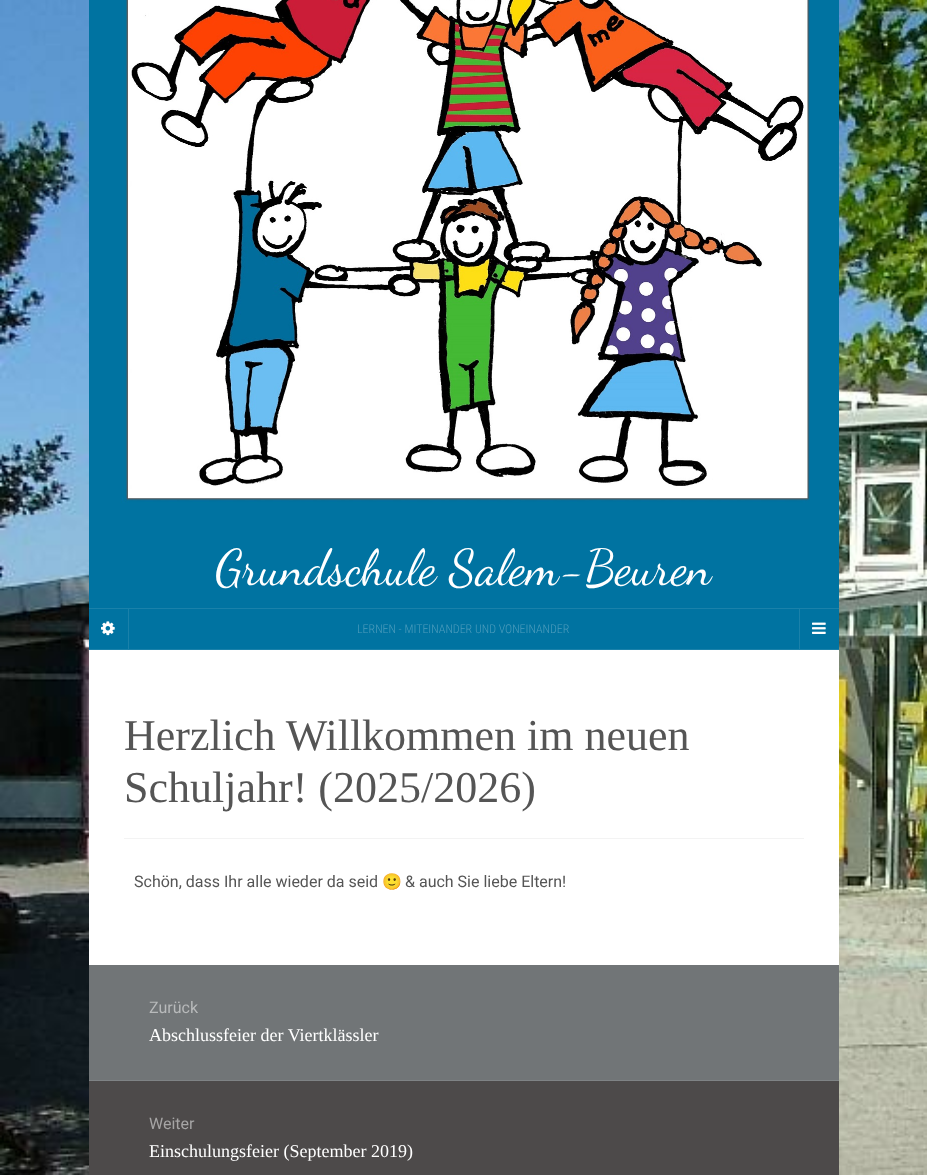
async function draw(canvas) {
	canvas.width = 927;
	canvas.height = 1175;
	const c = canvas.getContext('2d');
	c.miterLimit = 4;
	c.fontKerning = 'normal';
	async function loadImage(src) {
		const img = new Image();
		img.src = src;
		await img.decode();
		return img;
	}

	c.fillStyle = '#fff';
	c.fillRect(0, 0, 927, 1175);
	c.drawImage(await loadImage('img1.png'), 0, 0, 927, 1175);
	c.fillStyle = '#0073a1';
	c.fillRect(89, 0, 750, 649);
	c.fillStyle = '#1a81aa';
	c.fillRect(128, 609, 1, 40);
	c.drawImage(await loadImage('img2.png'), 101, 621, 14, 15);
	c.fillRect(89, 649, 750, 1);
	c.fillRect(89, 608, 750, 1);
	c.drawImage(await loadImage('img3.png'), 121, 0, 689, 503);
	c.font = '50px Dancing Script';
	c.fillStyle = '#fff';
	c.fillText('Grundschule Salem-Beuren', 215, 584);
	c.font = '300 12px Roboto Condensed';
	c.fillStyle = '#4d9dbd';
	c.fillText('LERNEN - MITEINANDER UND VONEINANDER', 357, 633);
	c.fillStyle = '#1a81aa';
	c.fillRect(799, 609, 1, 40);
	c.drawImage(await loadImage('img4.png'), 812, 622, 14, 12);
	c.fillStyle = '#fff';
	c.fillRect(89, 650, 750, 315);
	c.fillStyle = '#f3f3f3';
	c.fillRect(124, 838, 680, 1);
	c.font = '44px Liberation Serif';
	c.fillStyle = '#555';
	c.fillText('Herzlich Willkommen im neuen', 124, 750);
	c.fillText('Schuljahr! (2025/2026)', 124, 802);
	c.font = '16px Roboto';
	c.fillText('Schön, dass Ihr alle wieder da seid', 134, 887);
	c.font = '16px Noto Color Emoji';
	c.fillText('🙂', 382, 887);
	c.font = '16px Roboto';
	c.fillText('& auch Sie liebe Eltern!', 405, 887);
	c.fillStyle = '#717577';
	c.fillRect(89, 965, 750, 115);
	c.fillStyle = '#7f8385';
	c.fillRect(89, 1080, 750, 1);
	c.fillStyle = '#b8babb';
	c.fillText('Zurück', 149, 1013);
	c.font = '18px Liberation Serif';
	c.fillStyle = '#fff';
	c.fillText('Abschlussfeier der Viertklässler', 149, 1041);
	c.fillStyle = '#4d4a4a';
	c.fillRect(89, 1081, 750, 94);
	c.font = '16px Roboto';
	c.fillStyle = '#a6a5a5';
	c.fillText('Weiter', 149, 1129);
	c.font = '18px Liberation Serif';
	c.fillStyle = '#fff';
	c.fillText('Einschulungsfeier (September 2019)', 149, 1157);
}

draw(document.querySelector('canvas'));
